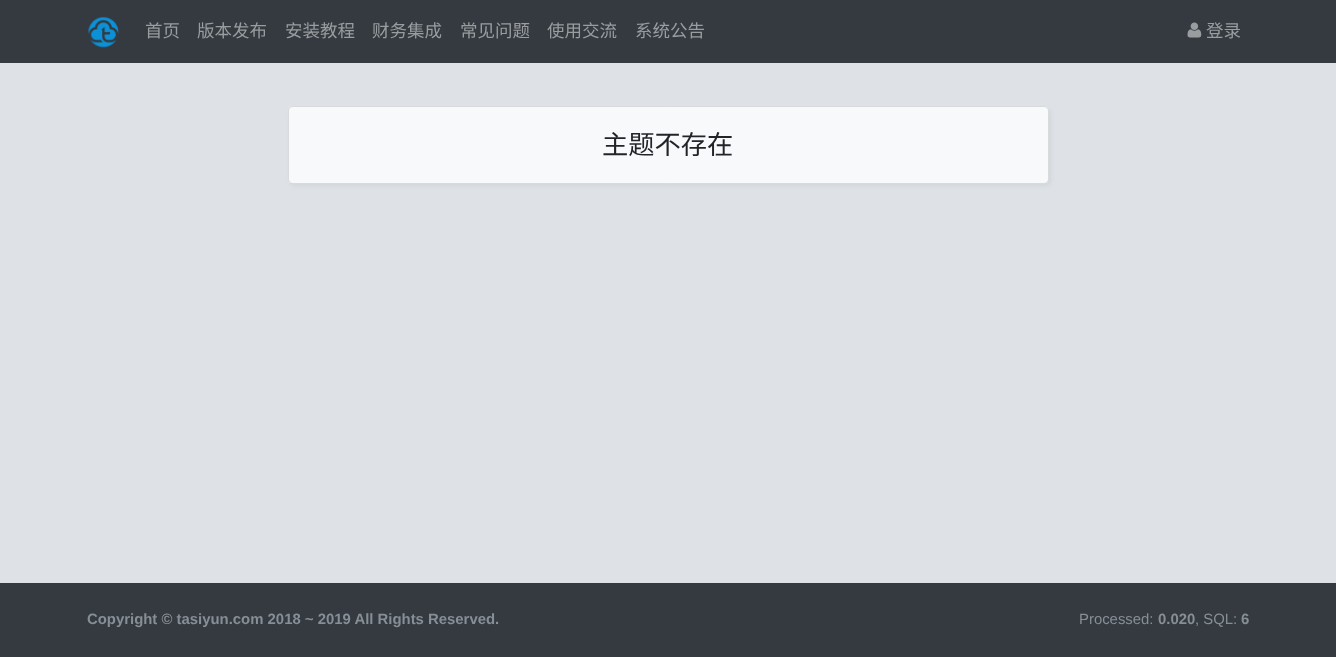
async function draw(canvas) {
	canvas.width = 1336;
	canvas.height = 657;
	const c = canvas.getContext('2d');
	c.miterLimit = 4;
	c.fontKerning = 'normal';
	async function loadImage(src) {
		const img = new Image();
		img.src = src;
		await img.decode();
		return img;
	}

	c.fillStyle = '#dee2e6';
	c.fillRect(0, 0, 1336, 657);
	c.fillStyle = '#343a40';
	c.fillRect(0, 0, 1336, 63);
	c.drawImage(await loadImage('img1.png'), 88, 17, 31, 31);
	c.font = '17.5px Noto Sans CJK SC';
	c.fillStyle = '#9a9da0';
	for (const [text, x, y] of [
		['首页', 145, 37],
		['版本发布', 197, 37],
		['安装教程', 285, 37],
		['财务集成', 372, 37],
		['常见问题', 460, 37],
		['使用交流', 547, 37],
		['系统公告', 635, 37],
	]) {
		c.fillText(text, x, y);
	}
	c.drawImage(await loadImage('img2.png'), 1187, 22, 15, 16);
	c.fillText('登录', 1206, 37);
	c.fillStyle = '#adb5bd40';
	c.filter = 'blur(2px)';
	c.beginPath();
	c.roundRect(290, 109, 761, 77, 5);
	c.fill();
	c.filter = 'none';
	c.fillStyle = '#f8f9fa';
	c.beginPath();
	c.roundRect(288, 106, 761, 78, 5);
	c.fill();
	c.beginPath();
	c.roundRect(288.5, 106.5, 760, 77, 4.5);
	c.strokeStyle = '#0000001f';
	c.stroke();
	c.font = '26.25px Noto Sans CJK SC';
	c.fillStyle = '#212529';
	c.fillText('主题不存在', 602, 154);
	c.fillStyle = '#343a40';
	c.fillRect(0, 583, 1336, 74);
	c.font = 'bold 14.9px Liberation Sans';
	c.fillStyle = '#868e96';
	c.fillText('Copyright © tasiyun.com 2018 ~ 2019 All Rights Reserved.', 87, 624);
	c.font = '14.9px Liberation Sans';
	c.fillText('Processed:', 1079, 624);
	c.font = 'bold 14.9px Liberation Sans';
	c.fillText('0.020', 1158, 624);
	c.font = '14.9px Liberation Sans';
	c.fillText(', SQL:', 1195, 624);
	c.font = 'bold 14.9px Liberation Sans';
	c.fillText('6', 1241, 624);
}

draw(document.querySelector('canvas'));
